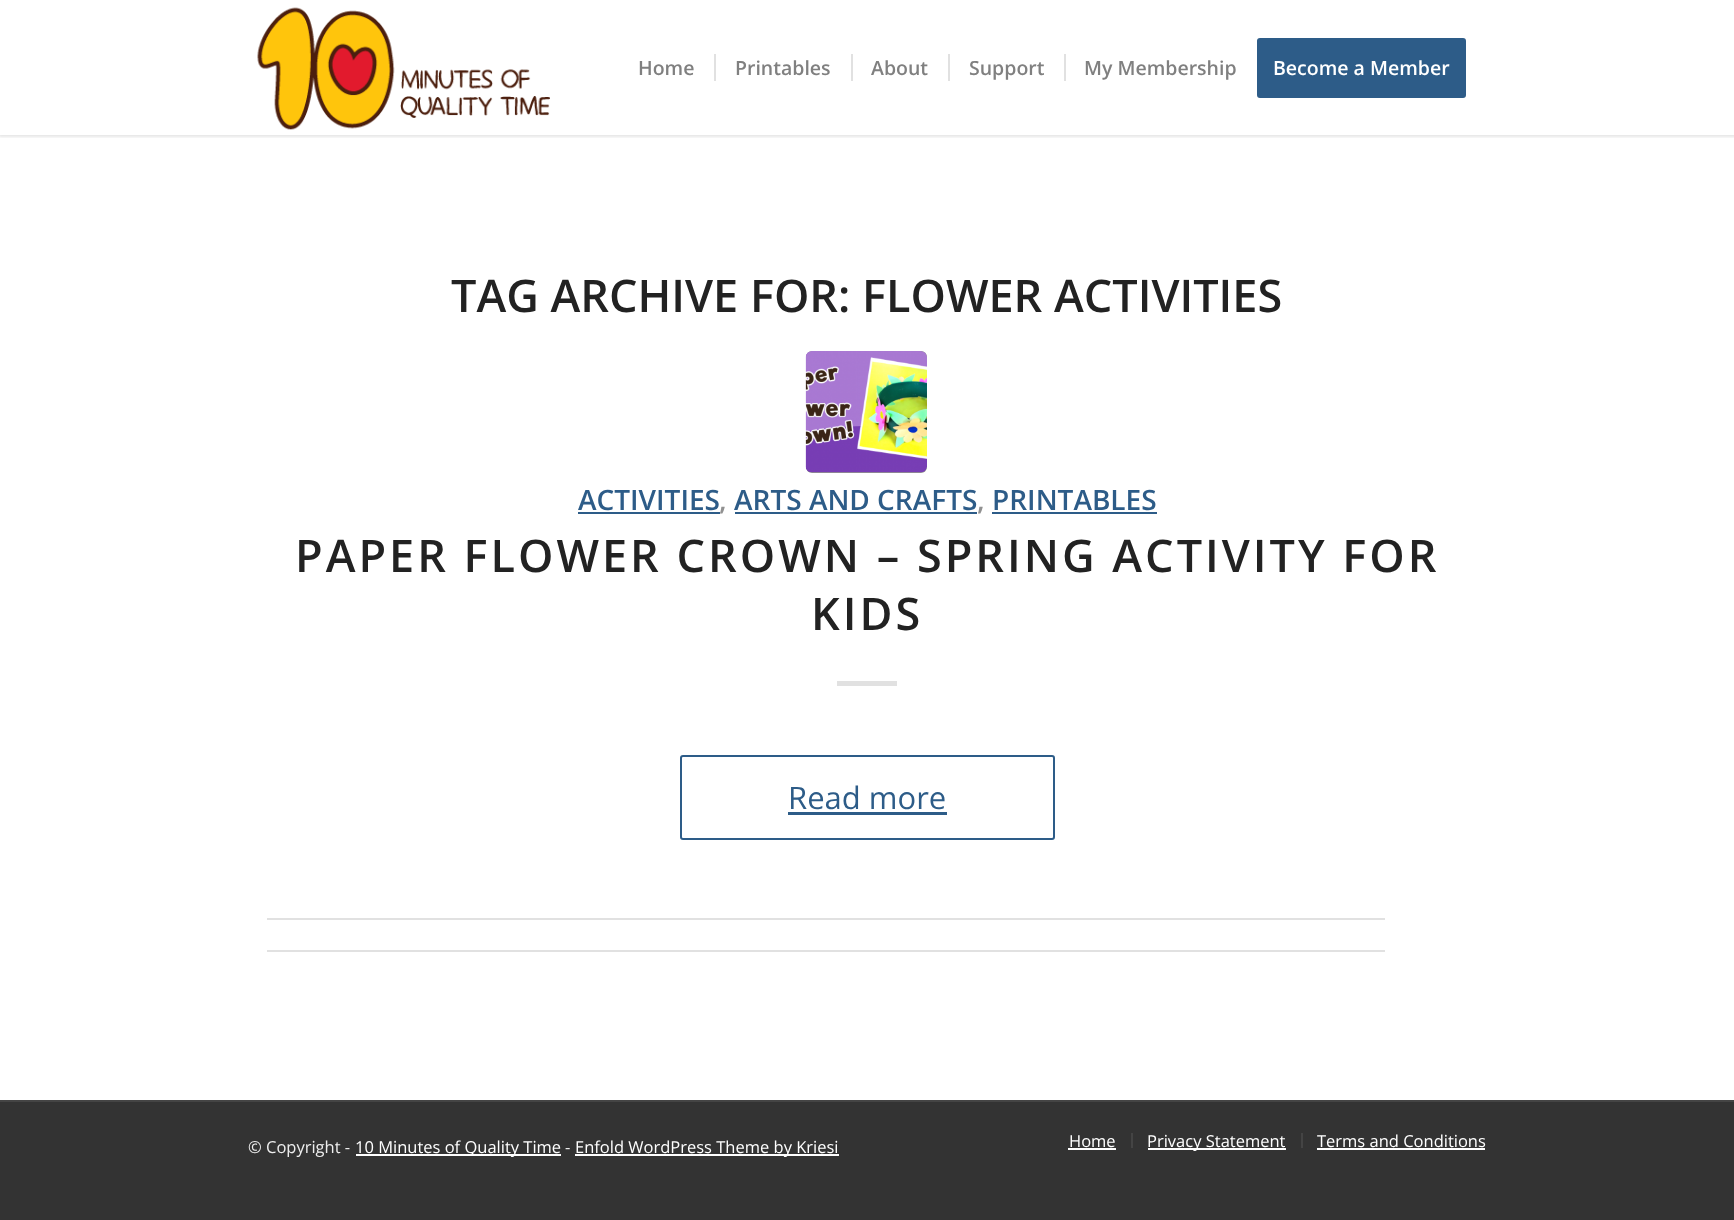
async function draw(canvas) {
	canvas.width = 1734;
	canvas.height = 1220;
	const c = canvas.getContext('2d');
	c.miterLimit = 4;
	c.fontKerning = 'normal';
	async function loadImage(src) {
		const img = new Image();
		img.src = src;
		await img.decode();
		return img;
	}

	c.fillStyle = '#333';
	c.fillRect(0, 0, 1734, 1220);
	c.fillStyle = '#fff';
	c.fillRect(0, 0, 1734, 1100);
	c.save();
	c.beginPath();
	c.rect(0, 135, 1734, 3);
	c.clip();
	c.fillStyle = '#0000001a';
	c.filter = 'blur(1.5px)';
	c.beginPath();
	c.rect(-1, -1, 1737, 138);
	c.fill();
	c.filter = 'none';
	c.restore();
	c.drawImage(await loadImage('img1.png'), 257, 7, 293, 123);
	c.font = '600 19.5px Open Sans';
	c.fillStyle = '#808080';
	c.fillText('Home', 638, 75);
	c.fillText('Printables', 735, 75);
	c.fillStyle = '#e1e1e1';
	c.fillRect(714, 54, 2, 27);
	c.fillStyle = '#808080';
	c.fillText('About', 871, 75);
	c.fillStyle = '#e1e1e1';
	c.fillRect(851, 54, 2, 27);
	c.fillStyle = '#808080';
	c.fillText('Support', 969, 75);
	c.fillStyle = '#e1e1e1';
	c.fillRect(948, 54, 2, 27);
	c.fillStyle = '#808080';
	c.fillText('My Membership', 1084, 75);
	c.fillStyle = '#e1e1e1';
	c.fillRect(1064, 54, 2, 27);
	c.fillStyle = '#2d5c88';
	c.beginPath();
	c.roundRect(1258.5, 39.5, 206, 57, 1.5);
	c.fill();
	c.strokeStyle = '#2d5c88';
	c.lineWidth = 3;
	c.stroke();
	c.fillStyle = '#fff';
	c.fillText('Become a Member', 1273, 75);
	c.font = '600 45px Open Sans';
	c.fillStyle = '#222';
	c.fillText('TAG ARCHIVE FOR: FLOWER ACTIVITIES', 451, 312);
	c.fillStyle = '#919191';
	c.beginPath();
	c.roundRect(806, 351, 121, 122, 6);
	c.fill();
	c.drawImage(await loadImage('img2.png'), 805, 351, 122, 122);
	c.font = '600 28px Open Sans';
	c.fillStyle = '#2d5c88';
	c.fillText('ACTIVITIES', 578, 510);
	c.fillRect(578, 512, 142, 2);
	c.fillStyle = '#919191';
	c.fillText(',', 719, 510);
	c.fillStyle = '#2d5c88';
	c.fillText('ARTS AND CRAFTS', 734, 510);
	c.fillRect(735, 512, 242, 2);
	c.fillStyle = '#919191';
	c.fillText(',', 977, 510);
	c.fillStyle = '#2d5c88';
	c.fillText('PRINTABLES', 992, 510);
	c.fillRect(992, 512, 165, 2);
	c.letterSpacing = '3px';
	c.font = '600 45px Open Sans';
	c.fillStyle = '#222';
	c.fillText('PAPER FLOWER CROWN – SPRING ACTIVITY FOR', 295, 572);
	c.fillText('KIDS', 811, 630);
	c.fillStyle = '#e1e1e1';
	c.fillRect(837, 681, 60, 5);
	c.beginPath();
	c.roundRect(681, 756, 373, 83, 2);
	c.lineWidth = 2;
	c.stroke();
	c.letterSpacing = '0px';
	c.font = '31px Open Sans';
	c.fillStyle = '#2d5c88';
	c.fillText('Read more', 788, 809);
	for (const [x, y, w, h, color] of [
		[788, 812, 159, 3, '#2d5c88'],
		[267, 918, 1118, 2, '#e1e1e1'],
		[267, 950, 1118, 2, '#e1e1e1'],
		[0, 1100, 1734, 2, '#444'],
	]) {
		c.fillStyle = color;
		c.fillRect(x, y, w, h);
	}
	c.font = '16.5px Open Sans';
	c.fillStyle = '#eee';
	c.fillText('© Copyright -', 248, 1153);
	c.fillStyle = '#fff';
	c.fillRect(356, 1154, 205, 2);
	c.fillText('10 Minutes of Quality Time', 355, 1153);
	c.fillStyle = '#eee';
	c.fillText('-', 565, 1153);
	c.fillStyle = '#fff';
	c.fillRect(575, 1154, 264, 2);
	c.fillText('Enfold WordPress Theme by Kriesi', 575, 1153);
	c.fillText('Home', 1069, 1147);
	for (const [x, y, w, h, color] of [
		[1068, 1148, 48, 2, '#fff'],
		[1131, 1133, 2, 15, '#444'],
		[1148, 1148, 138, 2, '#fff'],
	]) {
		c.fillStyle = color;
		c.fillRect(x, y, w, h);
	}
	c.fillText('Privacy Statement', 1147, 1147);
	c.fillStyle = '#444';
	c.fillRect(1301, 1133, 2, 15);
	c.fillStyle = '#fff';
	c.fillText('Terms and Conditions', 1317, 1147);
	c.fillRect(1317, 1148, 168, 2);
}

draw(document.querySelector('canvas'));
